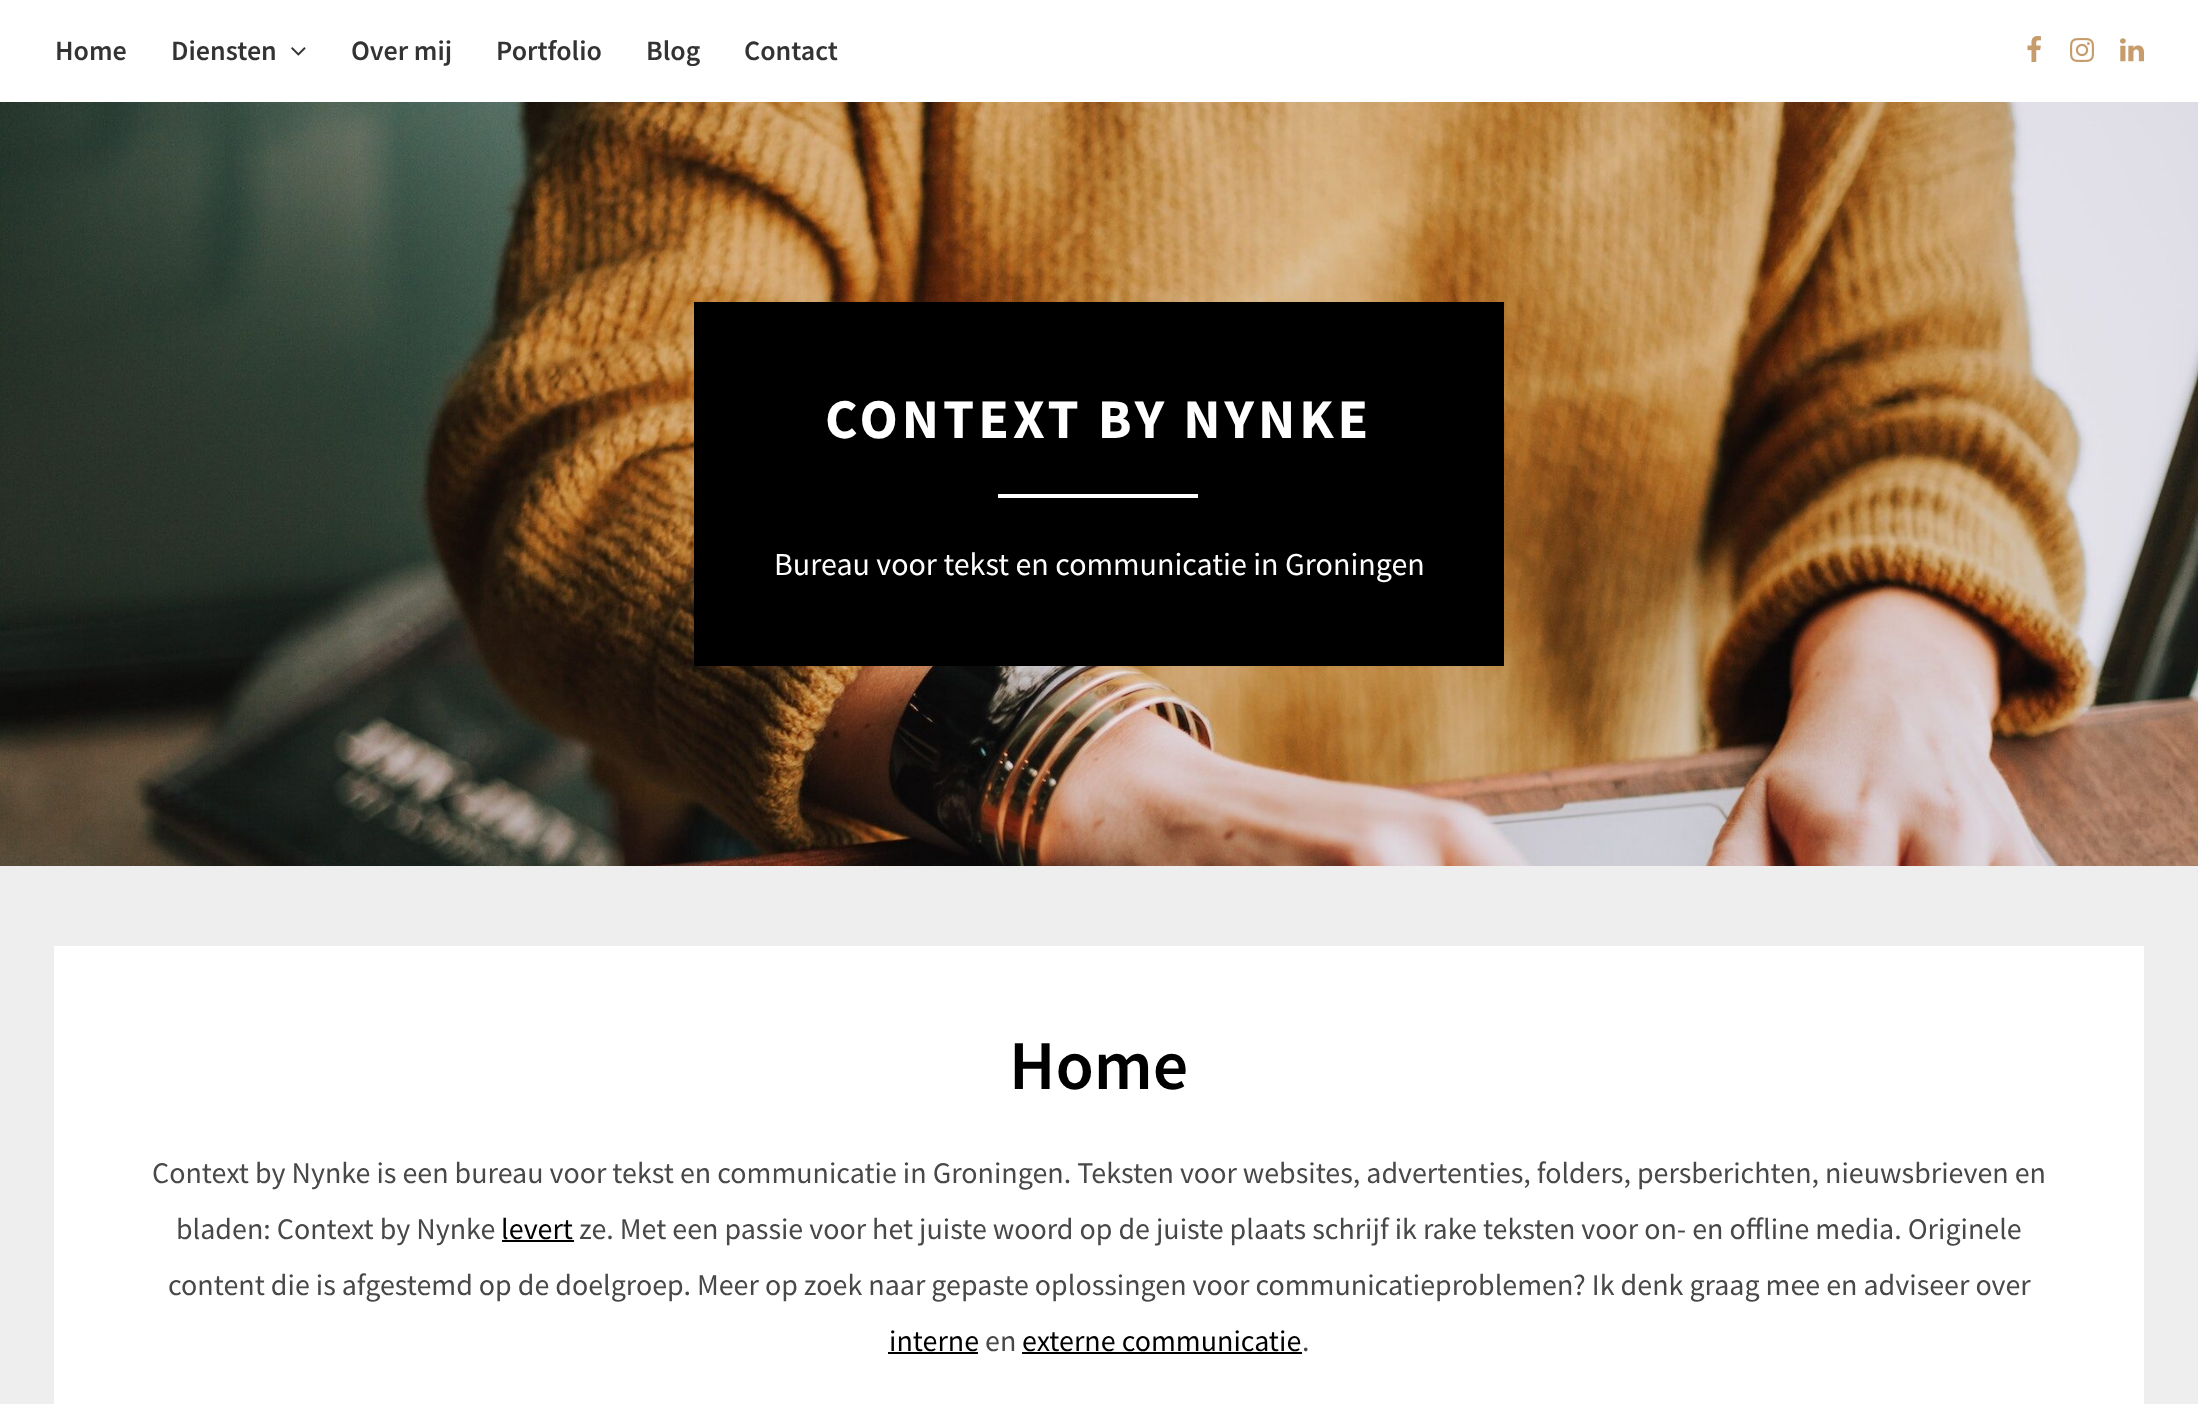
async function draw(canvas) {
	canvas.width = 2198;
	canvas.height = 1404;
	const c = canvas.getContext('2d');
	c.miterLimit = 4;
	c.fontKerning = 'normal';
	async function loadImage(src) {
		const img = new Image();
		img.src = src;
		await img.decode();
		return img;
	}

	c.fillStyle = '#eee';
	c.fillRect(0, 0, 2198, 1404);
	c.fillStyle = '#fff';
	c.fillRect(0, 0, 2198, 102);
	c.font = '600 28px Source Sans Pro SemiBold';
	c.fillStyle = '#333';
	c.fillText('Home', 55, 60);
	c.fillText('Diensten', 171, 60);
	c.drawImage(await loadImage('img1.png'), 291, 47, 15, 9);
	for (const [text, x, y] of [
		['Over mij', 351, 60],
		['Portfolio', 496, 60],
		['Blog', 646, 60],
		['Contact', 744, 60],
	]) {
		c.fillText(text, x, y);
	}
	c.drawImage(await loadImage('img2.png'), 2027, 36, 14, 26);
	c.drawImage(await loadImage('img3.png'), 2070, 38, 24, 24);
	c.drawImage(await loadImage('img4.png'), 2120, 38, 24, 24);
	c.drawImage(await loadImage('img5.png'), 0, 102, 2198, 764);
	c.fillStyle = '#000';
	c.fillRect(694, 302, 810, 364);
	c.letterSpacing = '4px';
	c.font = 'bold 56px Source Sans Pro';
	c.fillStyle = '#fff';
	c.fillText('CONTEXT BY NYNKE', 825, 438);
	c.fillRect(998, 494, 200, 4);
	c.letterSpacing = '0px';
	c.font = '32px Source Sans Pro';
	c.fillText('Bureau voor tekst en communicatie in Groningen', 774, 575);
	c.fillRect(54, 946, 2090, 458);
	c.font = '600 70px Source Sans Pro SemiBold';
	c.fillStyle = '#000';
	c.fillText('Home', 1009, 1089);
	c.font = '30px Source Sans Pro';
	c.fillStyle = '#484848';
	c.fillText('Context by Nynke is een bureau voor tekst en communicatie in Groningen. Teksten voor websites, advertenties, folders, persberichten, nieuwsbrieven en', 152, 1183);
	c.fillText('bladen: Context by Nynke', 176, 1239);
	c.fillStyle = '#000';
	c.fillText('levert', 501, 1239);
	c.fillRect(502, 1240, 72, 2);
	c.fillStyle = '#484848';
	c.fillText('ze. Met een passie voor het juiste woord op de juiste plaats schrijf ik rake teksten voor on- en offline media. Originele', 579, 1239);
	c.fillText('content die is afgestemd op de doelgroep. Meer op zoek naar gepaste oplossingen voor communicatieproblemen? Ik denk graag mee en adviseer over', 168, 1295);
	c.fillStyle = '#000';
	c.fillText('interne', 889, 1351);
	c.fillRect(888, 1352, 90, 2);
	c.fillStyle = '#484848';
	c.fillText('en', 985, 1351);
	c.fillStyle = '#000';
	c.fillText('externe communicatie', 1022, 1351);
	c.fillRect(1022, 1352, 280, 2);
	c.fillStyle = '#484848';
	c.fillText('.', 1302, 1351);
}

draw(document.querySelector('canvas'));
